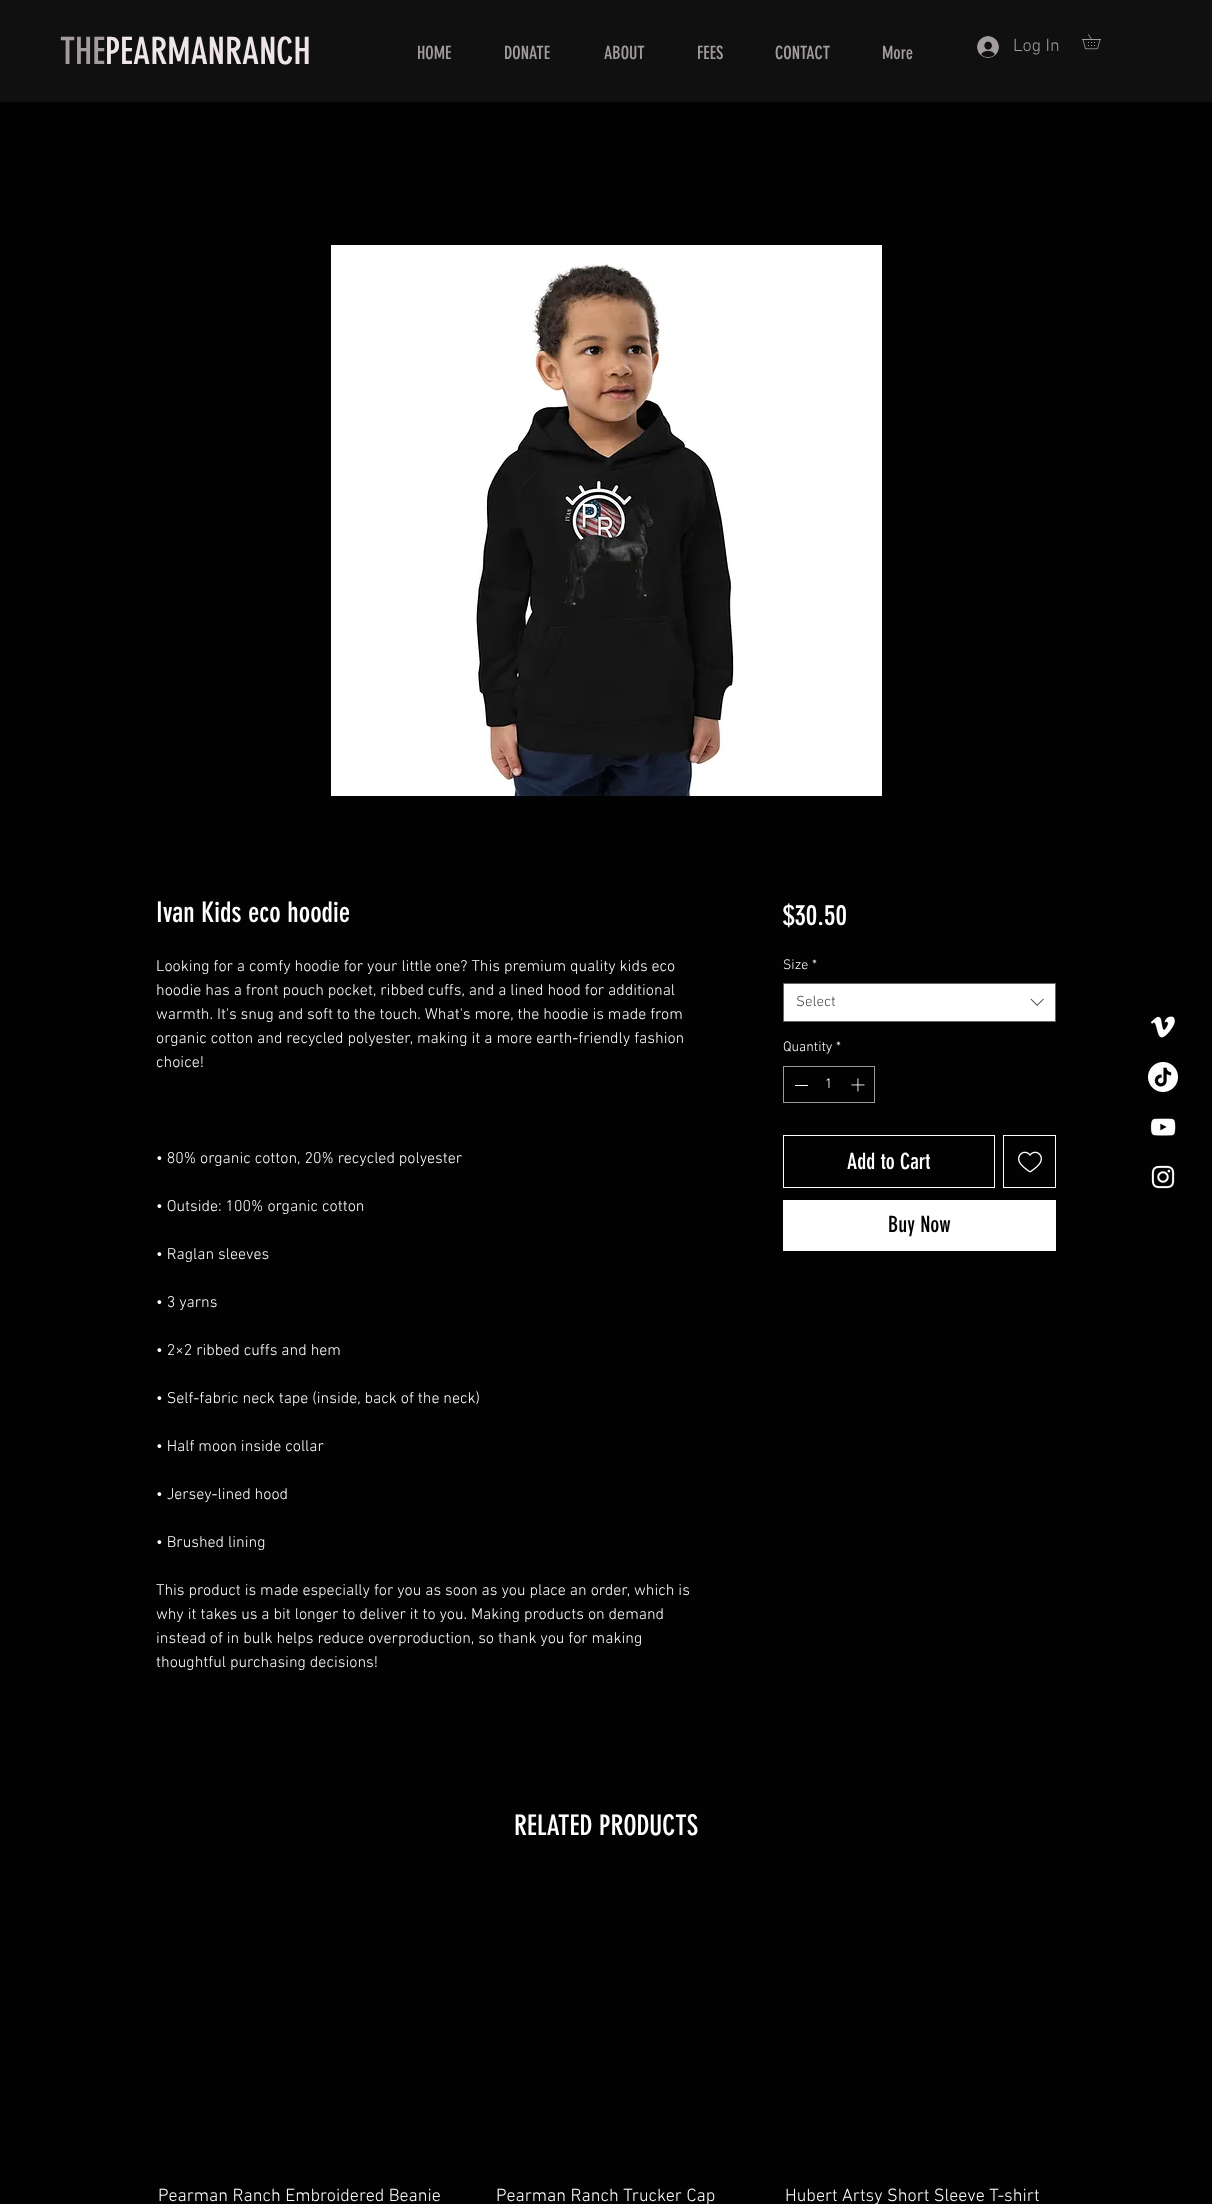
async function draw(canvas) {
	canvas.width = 1212;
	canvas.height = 2204;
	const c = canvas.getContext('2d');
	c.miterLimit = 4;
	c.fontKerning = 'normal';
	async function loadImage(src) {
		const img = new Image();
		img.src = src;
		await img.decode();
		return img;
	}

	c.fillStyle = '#020202';
	c.fillRect(0, 0, 1212, 2204);
	c.fillStyle = '#101010';
	c.fillRect(0, 0, 1212, 102);
	c.font = '37px "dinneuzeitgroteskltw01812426"';
	c.fillStyle = '#a29c9c';
	c.fillText('THE', 60, 64);
	c.fillStyle = '#eee6e6';
	c.fillText('PEARMANRANCH', 105, 64);
	c.font = '18px "dinneuzeitgroteskltw01812426"';
	c.fillStyle = '#a29c9c';
	for (const [text, x, y] of [
		['HOME', 417, 59],
		['DONATE', 504, 59],
		['ABOUT', 604, 59],
		['FEES', 697, 59],
		['CONTACT', 775, 59],
		['More', 882, 59],
	]) {
		c.fillText(text, x, y);
	}
	c.drawImage(await loadImage('img1.png'), 977, 36, 22, 22);
	c.font = '300 18px "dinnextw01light"';
	c.fillText('Log In', 1013, 51);
	c.drawImage(await loadImage('img2.png'), 1082, 34, 19, 16);
	c.drawImage(await loadImage('img3.png'), 331, 245, 551, 551);
	c.font = '28px "dinneuzeitgroteskltw01812426"';
	c.fillStyle = '#fff';
	c.fillText('Ivan Kids eco hoodie', 156, 922);
	c.font = '300 16px "dinnextw01light"';
	for (const [text, x, y] of [
		['Looking for a comfy hoodie for your little one? This premium quality kids eco', 156, 971],
		['hoodie has a front pouch pocket, ribbed cuffs, and a lined hood for additional', 156, 995],
		['warmth. It\'s snug and soft to the touch. What\'s more, the hoodie is made from', 156, 1019],
		['organic cotton and recycled polyester, making it a more earth-friendly fashion', 156, 1043],
		['choice!', 156, 1067],
		['• 80% organic cotton, 20% recycled polyester', 156, 1163],
		['• Outside: 100% organic cotton', 156, 1211],
		['• Raglan sleeves', 156, 1259],
		['• 3 yarns', 156, 1307],
		['• 2×2 ribbed cuffs and hem', 156, 1355],
		['• Self-fabric neck tape (inside, back of the neck)', 156, 1403],
		['• Half moon inside collar', 156, 1451],
		['• Jersey-lined hood', 156, 1499],
		['• Brushed lining', 156, 1547],
		['This product is made especially for you as soon as you place an order, which is', 156, 1595],
		['why it takes us a bit longer to deliver it to you. Making products on demand', 156, 1619],
		['instead of in bulk helps reduce overproduction, so thank you for making', 156, 1643],
		['thoughtful purchasing decisions!', 156, 1667],
	]) {
		c.fillText(text, x, y);
	}
	c.font = '28px "dinneuzeitgroteskltw01812426"';
	c.fillText('$30.50', 783, 925);
	c.font = '300 14px "dinnextw01light"';
	c.fillText('Size', 783, 969);
	c.fillText('*', 812, 969);
	c.beginPath();
	c.rect(783.5, 983.5, 272, 38);
	c.fill();
	c.strokeStyle = '#666';
	c.stroke();
	c.font = '300 15px "dinnextw01light"';
	c.fillStyle = '#444';
	c.fillText('Select', 796, 1006);
	c.drawImage(await loadImage('img4.png'), 1030, 998, 14, 8);
	c.font = '300 14px "dinnextw01light"';
	c.fillStyle = '#fff';
	c.fillText('Quantity', 783, 1051);
	c.fillText('*', 836, 1051);
	c.strokeStyle = '#9a9a9a';
	c.strokeRect(783.5, 1066.5, 91, 36);
	c.fillRect(795, 1085, 13, 1);
	c.fillText('1', 825, 1088);
	c.drawImage(await loadImage('img5.png'), 851, 1078, 14, 14);
	c.strokeStyle = '#fff';
	c.strokeRect(783.5, 1135.5, 211, 52);
	c.font = '22px "dinneuzeitgroteskltw01812426"';
	c.fillText('Add to Cart', 847, 1169);
	c.strokeRect(1003.5, 1135.5, 52, 52);
	c.drawImage(await loadImage('img6.png'), 1018, 1151, 24, 22);
	c.fillRect(783, 1200, 273, 51);
	c.fillStyle = '#020202';
	c.fillText('Buy Now', 888, 1232);
	c.font = '28px "dinneuzeitgroteskltw01812426"';
	c.fillStyle = '#fff';
	c.fillText('RELATED PRODUCTS', 514, 1835);
	c.font = '300 18px "dinnextw01light"';
	for (const [text, x, y] of [
		['Pearman Ranch Embroidered Beanie', 158, 2201],
		['Pearman Ranch Trucker Cap', 496, 2201],
		['Hubert Artsy Short Sleeve T-shirt', 785, 2201],
	]) {
		c.fillText(text, x, y);
	}
	c.drawImage(await loadImage('img7.png'), 1150, 1016, 25, 22);
	c.drawImage(await loadImage('img8.png'), 1148, 1062, 30, 30);
	c.drawImage(await loadImage('img9.png'), 1150, 1118, 26, 18);
	c.drawImage(await loadImage('img10.png'), 1151, 1165, 24, 24);
}

draw(document.querySelector('canvas'));
